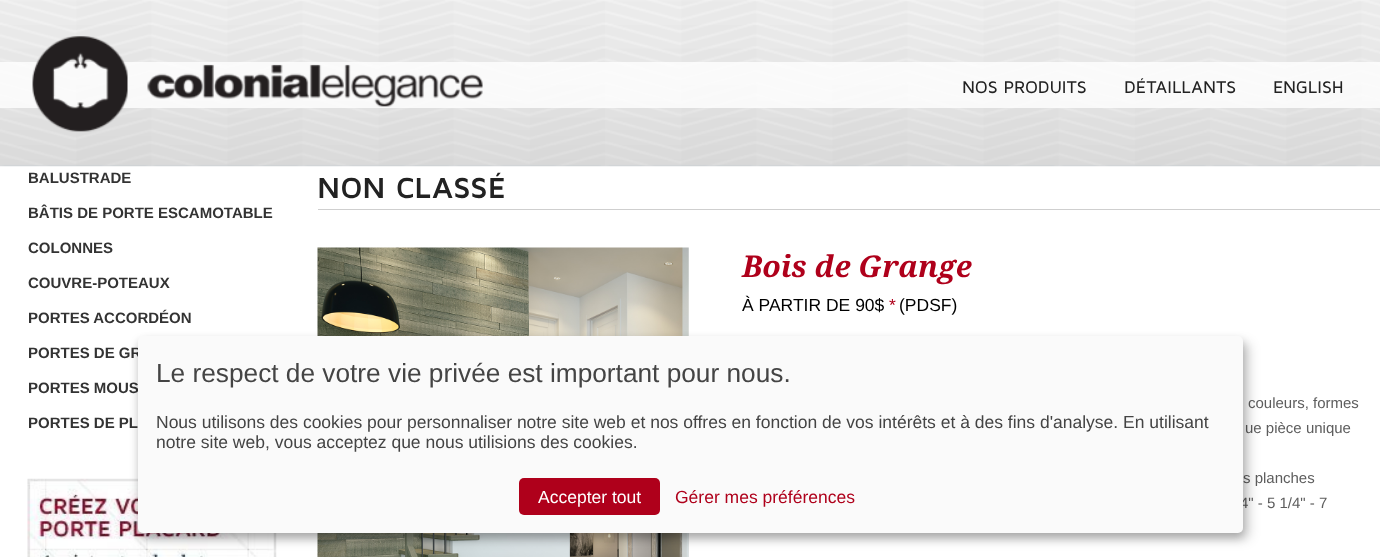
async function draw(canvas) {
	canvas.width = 1380;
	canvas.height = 557;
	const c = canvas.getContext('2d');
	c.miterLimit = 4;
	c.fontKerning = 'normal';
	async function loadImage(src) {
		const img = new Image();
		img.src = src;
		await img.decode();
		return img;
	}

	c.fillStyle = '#fff';
	c.fillRect(0, 0, 1380, 557);
	c.drawImage(await loadImage('img1.png'), 0, 0, 1380, 167);
	c.fillStyle = '#ffffffcc';
	c.fillRect(0, 62, 1380, 46);
	c.drawImage(await loadImage('img2.png'), 32, 36, 451, 96);
	c.font = '500 17.5px Maven Pro';
	c.fillStyle = '#222';
	for (const [text, x, y] of [
		['NOS PRODUITS', 962, 93],
		['DÉTAILLANTS', 1124, 93],
		['ENGLISH', 1273, 93],
	]) {
		c.fillText(text, x, y);
	}
	c.font = 'bold 15px Liberation Sans';
	c.fillStyle = '#333';
	for (const [text, x, y] of [
		['BALUSTRADE', 28, 183],
		['BÂTIS DE PORTE ESCAMOTABLE', 28, 218],
		['COLONNES', 28, 253],
		['COUVRE-POTEAUX', 28, 288],
		['PORTES ACCORDÉON', 28, 323],
		['PORTES DE GR', 28, 358],
		['PORTES MOUS', 28, 393],
		['PORTES DE PL', 28, 428],
	]) {
		c.fillText(text, x, y);
	}
	c.drawImage(await loadImage('img3.png'), 27, 478, 250, 79);
	c.fillStyle = '#cfcfcf';
	c.fillRect(318, 209, 1062, 1);
	c.font = 'bold 30px Maven Pro';
	c.fillStyle = '#222';
	c.fillText('NON CLASSÉ', 317, 198);
	c.drawImage(await loadImage('img4.png'), 317, 247, 372, 310);
	c.font = 'italic bold 30px Droid Serif';
	c.fillStyle = '#af001b';
	c.fillText('Bois de Grange', 742, 277);
	c.font = '17.5px Liberation Sans';
	c.fillStyle = '#000';
	c.fillText('À PARTIR DE 90$', 742, 311);
	c.fillStyle = '#af001b';
	c.fillText('*', 889, 311);
	c.fillStyle = '#000';
	c.fillText('(PDSF)', 899, 311);
	c.font = '15px Liberation Sans';
	c.fillStyle = '#5d5d5d';
	for (const [text, x, y] of [
		['couleurs, formes', 1248, 408],
		['ue pièce unique', 1245, 433],
		['s planches', 1243, 483],
		['4" - 5 1/4" - 7', 1240, 508],
	]) {
		c.fillText(text, x, y);
	}
	c.fillStyle = '#00000030';
	c.filter = 'blur(6px)';
	c.beginPath();
	c.roundRect(144, 343, 1105, 196, 5);
	c.fill();
	c.filter = 'none';
	c.fillStyle = '#00000033';
	c.filter = 'blur(4px)';
	c.beginPath();
	c.roundRect(138, 341, 1105, 197, 5);
	c.fill();
	c.filter = 'none';
	c.fillStyle = '#fafafa';
	c.beginPath();
	c.roundRect(138, 336, 1105, 197, 5);
	c.fill();
	c.font = '26.25px Liberation Sans';
	c.fillStyle = '#444';
	c.fillText('Le respect de votre vie privée est important pour nous.', 156, 382);
	c.font = '17.5px Liberation Sans';
	c.fillText('Nous utilisons des cookies pour personnaliser notre site web et nos offres en fonction de vos intérêts et à des fins d\'analyse. En utilisant', 156, 428);
	c.fillText('notre site web, vous acceptez que nous utilisions des cookies.', 156, 448);
	c.fillStyle = '#af001b';
	c.beginPath();
	c.roundRect(519, 478, 141, 37, 5);
	c.fill();
	c.fillStyle = '#fff';
	c.fillText('Accepter tout', 538, 503);
	c.fillStyle = '#af001b';
	c.fillText('Gérer mes préférences', 675, 503);
}

draw(document.querySelector('canvas'));
